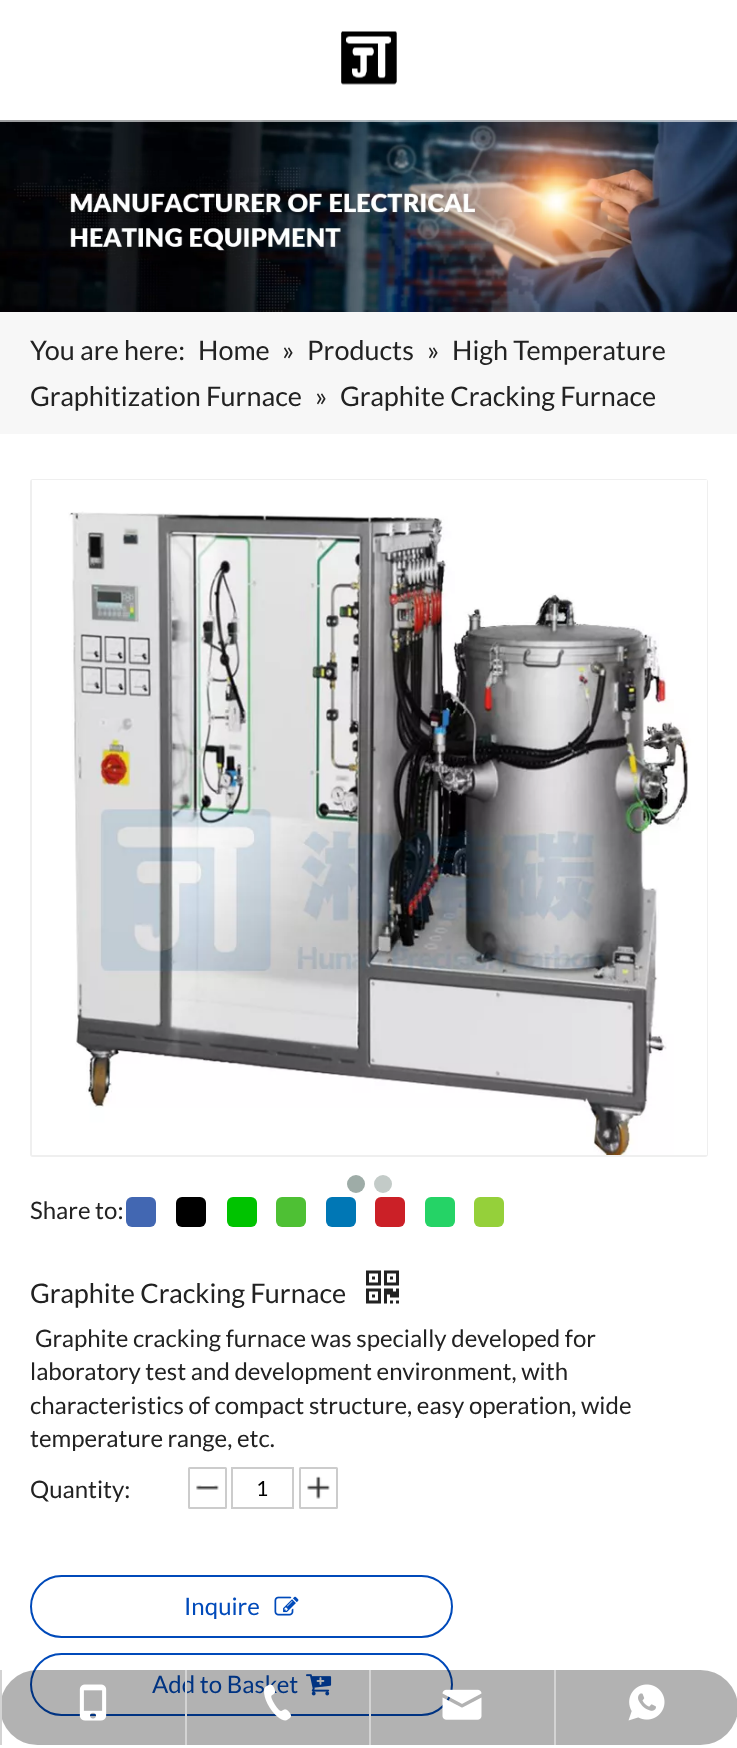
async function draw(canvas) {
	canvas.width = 737;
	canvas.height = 1748;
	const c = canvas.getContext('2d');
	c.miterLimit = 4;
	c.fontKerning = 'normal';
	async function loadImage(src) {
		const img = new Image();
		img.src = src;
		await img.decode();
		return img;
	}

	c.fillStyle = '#fff';
	c.fillRect(0, 0, 737, 1748);
	c.drawImage(await loadImage('img2.png'), 0, 120, 737, 192);
	c.fillStyle = '#ffffff4d';
	c.fillRect(0, 120, 737, 2);
	c.fillStyle = '#ffffff73';
	c.fillRect(0, 120, 737, 2);
	c.drawImage(await loadImage('img1.png'), 341, 31, 56, 54);
	c.fillStyle = '#f7f7f7';
	c.fillRect(0, 312, 737, 122);
	c.font = '27px Lato';
	c.fillStyle = '#222';
	for (const [text, x, y] of [
		['You are here:', 30, 360],
		['Home', 198, 360],
		['»', 282, 360],
		['Products', 307, 360],
		['»', 427, 360],
		['High Temperature', 452, 360],
		['Graphitization Furnace', 30, 406],
		['»', 315, 406],
		['Graphite Cracking Furnace', 340, 406],
	]) {
		c.fillText(text, x, y);
	}
	c.beginPath();
	c.roundRect(31, 480, 676, 676, 2);
	c.strokeStyle = '#efefef';
	c.lineWidth = 2;
	c.stroke();
	c.drawImage(await loadImage('img3.png'), 32, 480, 675, 675);
	c.fillStyle = '#9eaca7';
	c.beginPath();
	c.arc(356, 1184, 9, 0, 2 * Math.PI);
	c.fill();
	c.fillStyle = '#c3cbc8';
	c.beginPath();
	c.arc(383, 1184, 9, 0, 2 * Math.PI);
	c.fill();
	c.font = '24px Lato';
	c.fillStyle = '#222';
	c.fillText('Share to:', 30, 1219);
	c.fillStyle = '#4267b2';
	c.beginPath();
	c.roundRect(126, 1197, 30, 30, 6);
	c.fill();
	c.fillStyle = '#000';
	c.beginPath();
	c.roundRect(176, 1197, 30, 30, 6);
	c.fill();
	c.fillStyle = '#00c300';
	c.beginPath();
	c.roundRect(227, 1197, 30, 30, 6);
	c.fill();
	c.fillStyle = '#4ec034';
	c.beginPath();
	c.roundRect(276, 1197, 30, 30, 6);
	c.fill();
	c.fillStyle = '#0077b5';
	c.beginPath();
	c.roundRect(326, 1197, 30, 30, 6);
	c.fill();
	c.fillStyle = '#cb2027';
	c.beginPath();
	c.roundRect(375, 1197, 30, 30, 6);
	c.fill();
	c.fillStyle = '#25d366';
	c.beginPath();
	c.roundRect(425, 1197, 30, 30, 6);
	c.fill();
	c.fillStyle = '#95d03a';
	c.beginPath();
	c.roundRect(474, 1197, 30, 30, 6);
	c.fill();
	c.font = '27px Lato';
	c.fillStyle = '#222';
	c.fillText('Graphite Cracking Furnace', 30, 1303);
	c.drawImage(await loadImage('img4.png'), 366, 1270, 33, 34);
	c.font = '24px Lato';
	for (const [text, x, y] of [
		['Graphite cracking furnace was specially developed for', 35, 1347],
		['laboratory test and development environment, with', 30, 1380],
		['characteristics of compact structure, easy operation, wide', 30, 1414],
		['temperature range, etc.', 30, 1447],
		['Quantity:', 30, 1498],
	]) {
		c.fillText(text, x, y);
	}
	c.drawImage(await loadImage('img5.png'), 196, 1485, 23, 5);
	c.beginPath();
	c.roundRect(189, 1468, 37, 40, 0.5);
	c.strokeStyle = '#ccc';
	c.stroke();
	c.strokeRect(232, 1468, 61, 40);
	c.font = '21px Lato';
	c.fillStyle = '#000';
	c.fillText('1', 256, 1496);
	c.drawImage(await loadImage('img6.png'), 307, 1476, 23, 23);
	c.beginPath();
	c.roundRect(300, 1468, 37, 40, 0.5);
	c.stroke();
	c.beginPath();
	c.roundRect(31, 1576, 421, 61, 30.5);
	c.strokeStyle = '#004aba';
	c.stroke();
	c.font = '24px Lato';
	c.fillStyle = '#004aba';
	c.fillText('Inquire', 184, 1615);
	c.drawImage(await loadImage('img7.png'), 274, 1596, 25, 20);
	c.beginPath();
	c.roundRect(31, 1654, 421, 61, 30.5);
	c.stroke();
	c.fillText('Add to Basket', 152, 1693);
	c.drawImage(await loadImage('img8.png'), 306, 1674, 26, 22);
	c.fillStyle = '#0000004d';
	c.beginPath();
	c.roundRect(0, 1670, 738, 75, 37.5);
	c.fill();
	c.fillStyle = '#d3d3d3';
	c.fillRect(0, 1670, 2, 75);
	c.drawImage(await loadImage('img9.png'), 79, 1684, 28, 37);
	c.fillRect(185, 1670, 2, 75);
	c.drawImage(await loadImage('img10.png'), 264, 1684, 27, 37);
	c.fillRect(369, 1670, 2, 75);
	c.drawImage(await loadImage('img11.png'), 442, 1689, 40, 31);
	c.fillRect(554, 1670, 2, 75);
	c.drawImage(await loadImage('img12.png'), 628, 1684, 37, 37);
}

draw(document.querySelector('canvas'));
